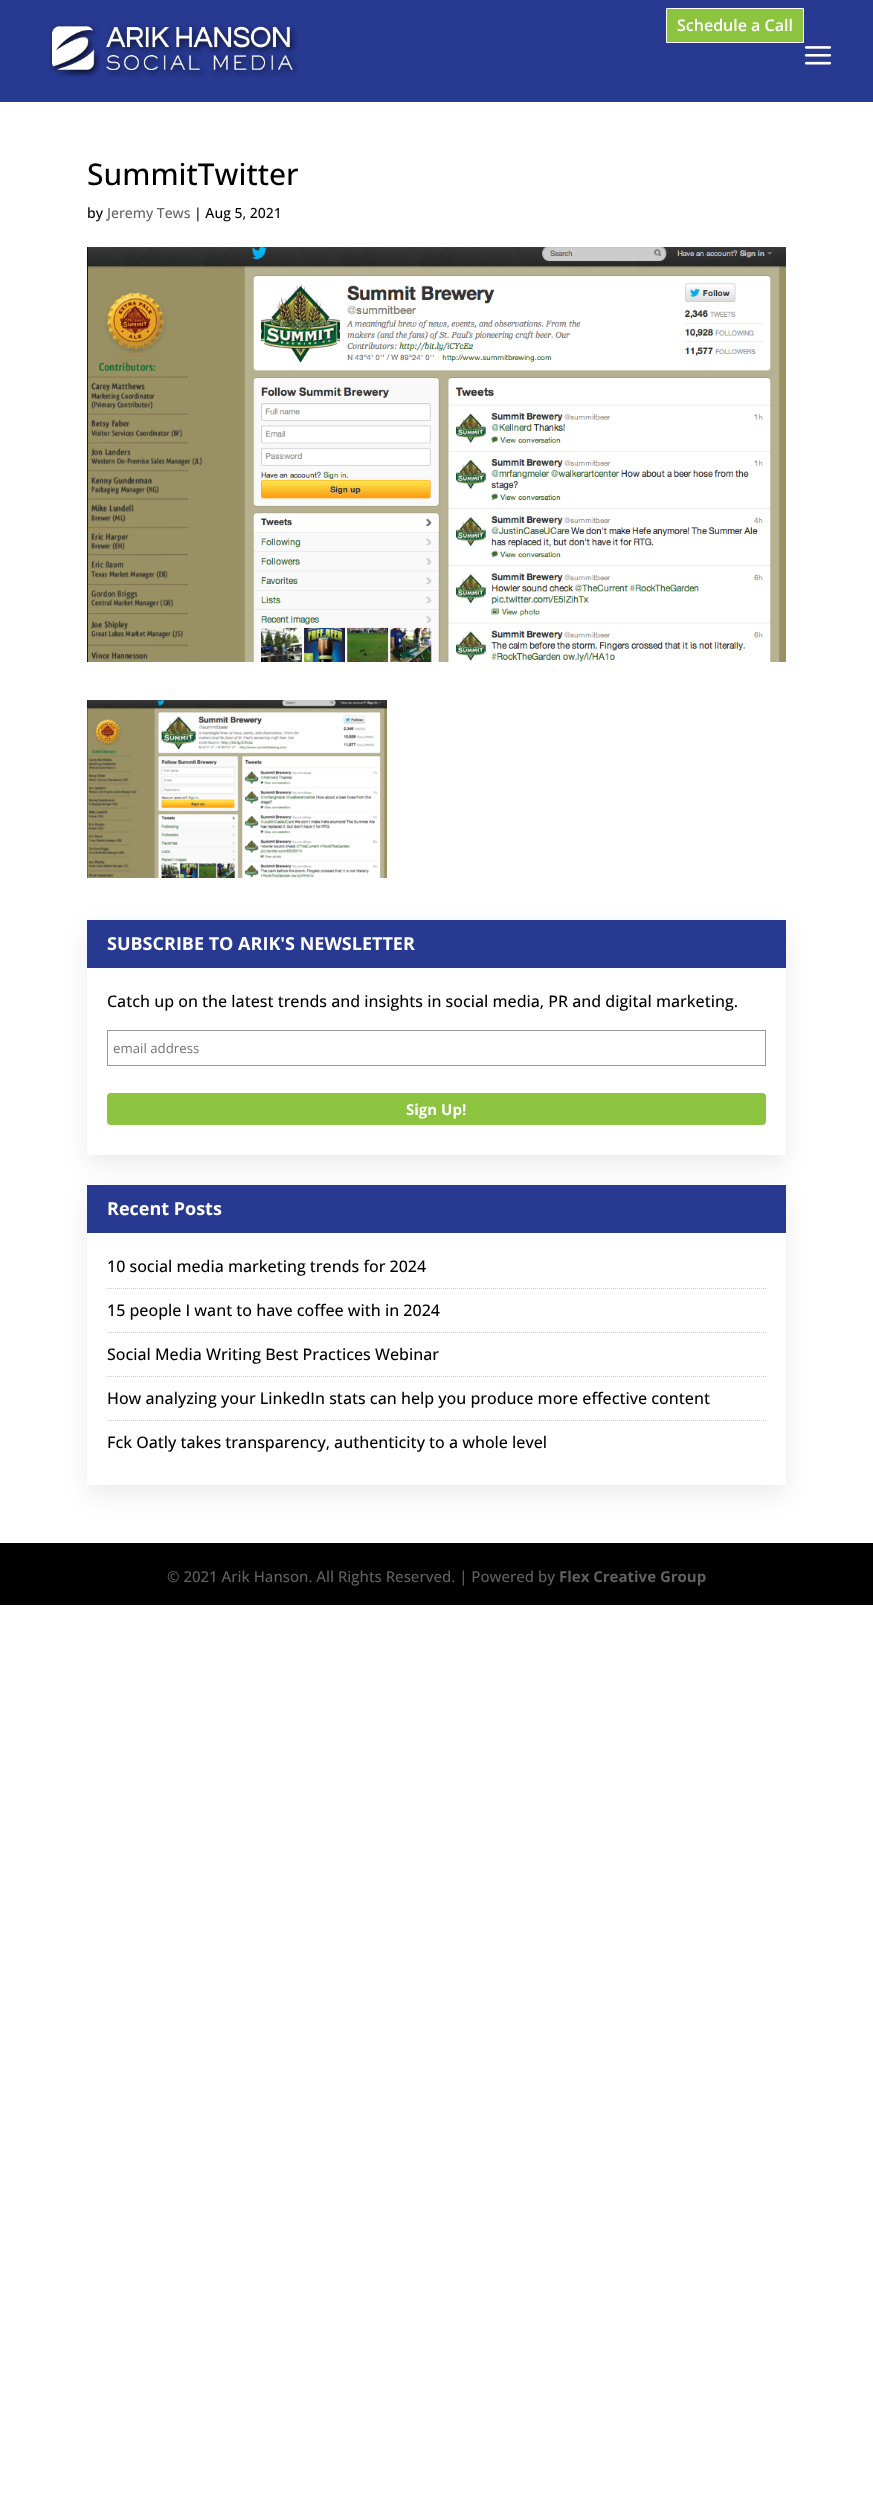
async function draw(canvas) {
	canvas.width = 873;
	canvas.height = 2517;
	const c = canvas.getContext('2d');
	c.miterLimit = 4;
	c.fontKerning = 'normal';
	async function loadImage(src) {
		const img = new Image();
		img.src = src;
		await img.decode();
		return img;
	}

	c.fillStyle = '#fff';
	c.fillRect(0, 0, 873, 2517);
	c.fillStyle = '#273990';
	c.fillRect(0, 0, 873, 102);
	c.drawImage(await loadImage('img1.png'), 49, 24, 249, 53);
	c.fillStyle = '#8cc440';
	c.beginPath();
	c.rect(666.5, 8.5, 137, 34);
	c.fill();
	c.strokeStyle = '#fff';
	c.stroke();
	c.font = '600 16px Open Sans';
	c.fillStyle = '#fff';
	c.fillText('Schedule a Call', 677, 31);
	c.drawImage(await loadImage('img2.png'), 804, 46, 28, 19);
	c.font = '500 30px Open Sans';
	c.fillStyle = '#000';
	c.fillText('SummitTwitter', 87, 185);
	c.font = '500 14px Open Sans';
	c.fillText('by', 87, 218);
	c.fillStyle = '#666';
	c.fillText('Jeremy Tews', 107, 218);
	c.fillStyle = '#000';
	c.fillText('| Aug 5, 2021', 194, 218);
	c.drawImage(await loadImage('img3.png'), 87, 247, 699, 415);
	c.drawImage(await loadImage('img4.png'), 87, 700, 300, 178);
	c.save();
	c.beginPath();
	c.moveTo(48, 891);
	c.lineTo(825, 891);
	c.lineTo(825, 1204);
	c.lineTo(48, 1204);
	c.closePath();
	c.moveTo(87, 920);
	c.lineTo(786, 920);
	c.lineTo(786, 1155);
	c.lineTo(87, 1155);
	c.closePath();
	c.clip('evenodd');
	c.fillStyle = '#00000014';
	c.filter = 'blur(12.5px)';
	c.beginPath();
	c.rect(87, 930, 699, 235);
	c.fill();
	c.filter = 'none';
	c.restore();
	c.fillStyle = '#273991';
	c.fillRect(87, 920, 699, 48);
	c.font = 'bold 18px Open Sans';
	c.fillStyle = '#fff';
	c.fillText('SUBSCRIBE TO ARIK\'S NEWSLETTER', 107, 950);
	c.font = '500 16px Open Sans';
	c.fillStyle = '#000';
	c.fillText('Catch up on the latest trends and insights in social media, PR and digital marketing.', 107, 1007);
	c.strokeStyle = '#999';
	c.strokeRect(107.5, 1030.5, 658, 35);
	c.font = '13.25px Open Sans';
	c.fillStyle = '#757575';
	c.fillText('email address', 113, 1053);
	c.fillStyle = '#8cc440';
	c.beginPath();
	c.roundRect(107, 1093, 659, 32, 4);
	c.fill();
	c.font = 'bold 15px Open Sans';
	c.fillStyle = '#fff';
	c.fillText('Sign Up!', 406, 1115);
	c.save();
	c.beginPath();
	c.moveTo(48, 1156);
	c.lineTo(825, 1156);
	c.lineTo(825, 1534);
	c.lineTo(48, 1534);
	c.closePath();
	c.moveTo(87, 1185);
	c.lineTo(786, 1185);
	c.lineTo(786, 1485);
	c.lineTo(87, 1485);
	c.closePath();
	c.clip('evenodd');
	c.fillStyle = '#00000014';
	c.filter = 'blur(12.5px)';
	c.beginPath();
	c.rect(87, 1195, 699, 300);
	c.fill();
	c.filter = 'none';
	c.restore();
	c.fillStyle = '#273991';
	c.fillRect(87, 1185, 699, 48);
	c.font = 'bold 18px Open Sans';
	c.fillStyle = '#fff';
	c.fillText('Recent Posts', 107, 1215);
	c.beginPath();
	c.moveTo(107, 1288.5);
	c.lineTo(766, 1288.5);
	c.strokeStyle = '#ccc';
	c.setLineDash([1, 1]);
	c.stroke();
	c.font = '500 16px Open Sans';
	c.fillStyle = '#000';
	c.fillText('10 social media marketing trends for 2024', 107, 1272);
	c.beginPath();
	c.moveTo(107, 1332.5);
	c.lineTo(766, 1332.5);
	c.stroke();
	c.fillText('15 people I want to have coffee with in 2024', 107, 1316);
	c.beginPath();
	c.moveTo(107, 1376.5);
	c.lineTo(766, 1376.5);
	c.stroke();
	c.fillText('Social Media Writing Best Practices Webinar', 107, 1360);
	c.beginPath();
	c.moveTo(107, 1420.5);
	c.lineTo(766, 1420.5);
	c.stroke();
	c.fillText('How analyzing your LinkedIn stats can help you produce more effective content', 107, 1404);
	c.fillText('Fck Oatly takes transparency, authenticity to a whole level', 107, 1448);
	c.fillRect(0, 1543, 873, 62);
	c.font = '500 15px Open Sans';
	c.fillStyle = '#606060';
	c.fillText('© 2021 Arik Hanson. All Rights Reserved. | Powered by', 167, 1582);
	c.font = 'bold 15px Open Sans';
	c.fillText('Flex Creative Group', 559, 1582);
}

draw(document.querySelector('canvas'));
